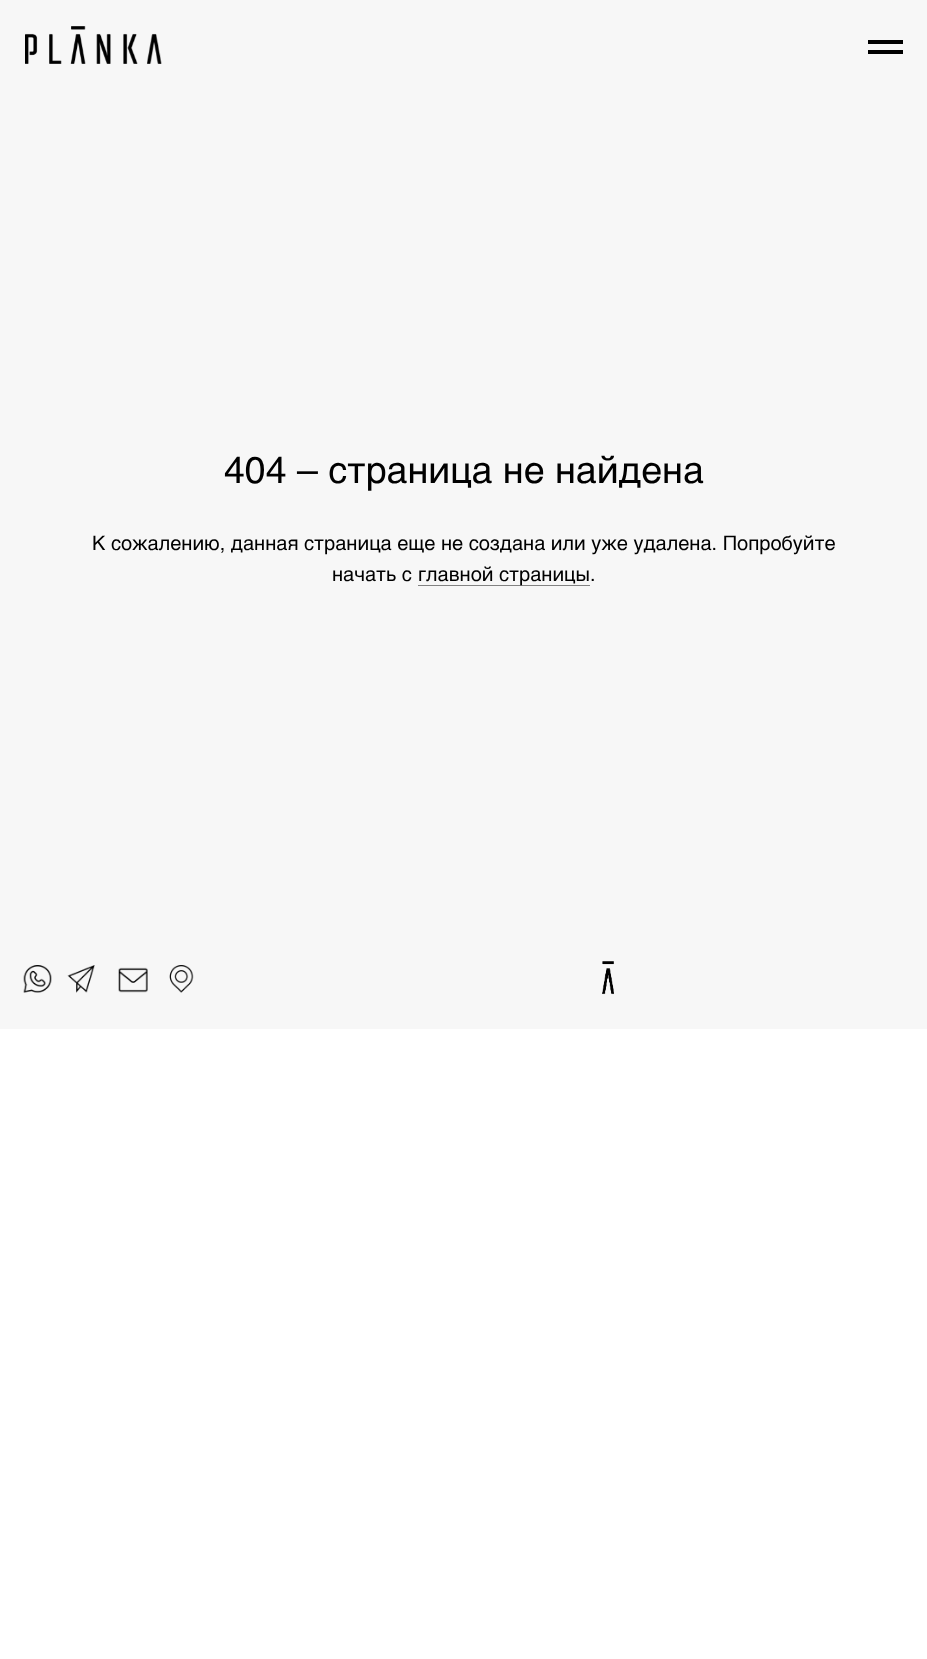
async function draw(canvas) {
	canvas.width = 927;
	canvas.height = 1659;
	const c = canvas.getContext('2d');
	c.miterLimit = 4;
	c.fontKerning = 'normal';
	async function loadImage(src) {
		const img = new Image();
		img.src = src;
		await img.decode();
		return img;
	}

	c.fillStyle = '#fff';
	c.fillRect(0, 0, 927, 1659);
	c.fillStyle = '#f7f7f7';
	c.fillRect(0, 0, 927, 1029);
	c.drawImage(await loadImage('img1.png'), 25, 26, 137, 38);
	c.fillStyle = '#000';
	c.fillRect(868, 40, 35, 4);
	c.fillRect(868, 50, 35, 4);
	c.font = '37.5px Helvetica';
	c.fillText('404 – страница не найдена', 224, 483);
	c.font = '20px Helvetica';
	c.fillText('К сожалению, данная страница еще не создана или уже удалена. Попробуйте', 92, 550);
	c.fillText('начать с', 332, 581);
	c.fillStyle = '#828282';
	c.fillRect(418, 585, 172, 1);
	c.fillStyle = '#000';
	c.fillText('главной страницы.', 418, 581);
	c.drawImage(await loadImage('img2.png'), 23, 965, 29, 28);
	c.drawImage(await loadImage('img3.png'), 67, 965, 28, 28);
	c.drawImage(await loadImage('img4.png'), 118, 967, 30, 26);
	c.drawImage(await loadImage('img5.png'), 169, 965, 25, 28);
	c.drawImage(await loadImage('img6.png'), 602, 961, 12, 34);
}

draw(document.querySelector('canvas'));
